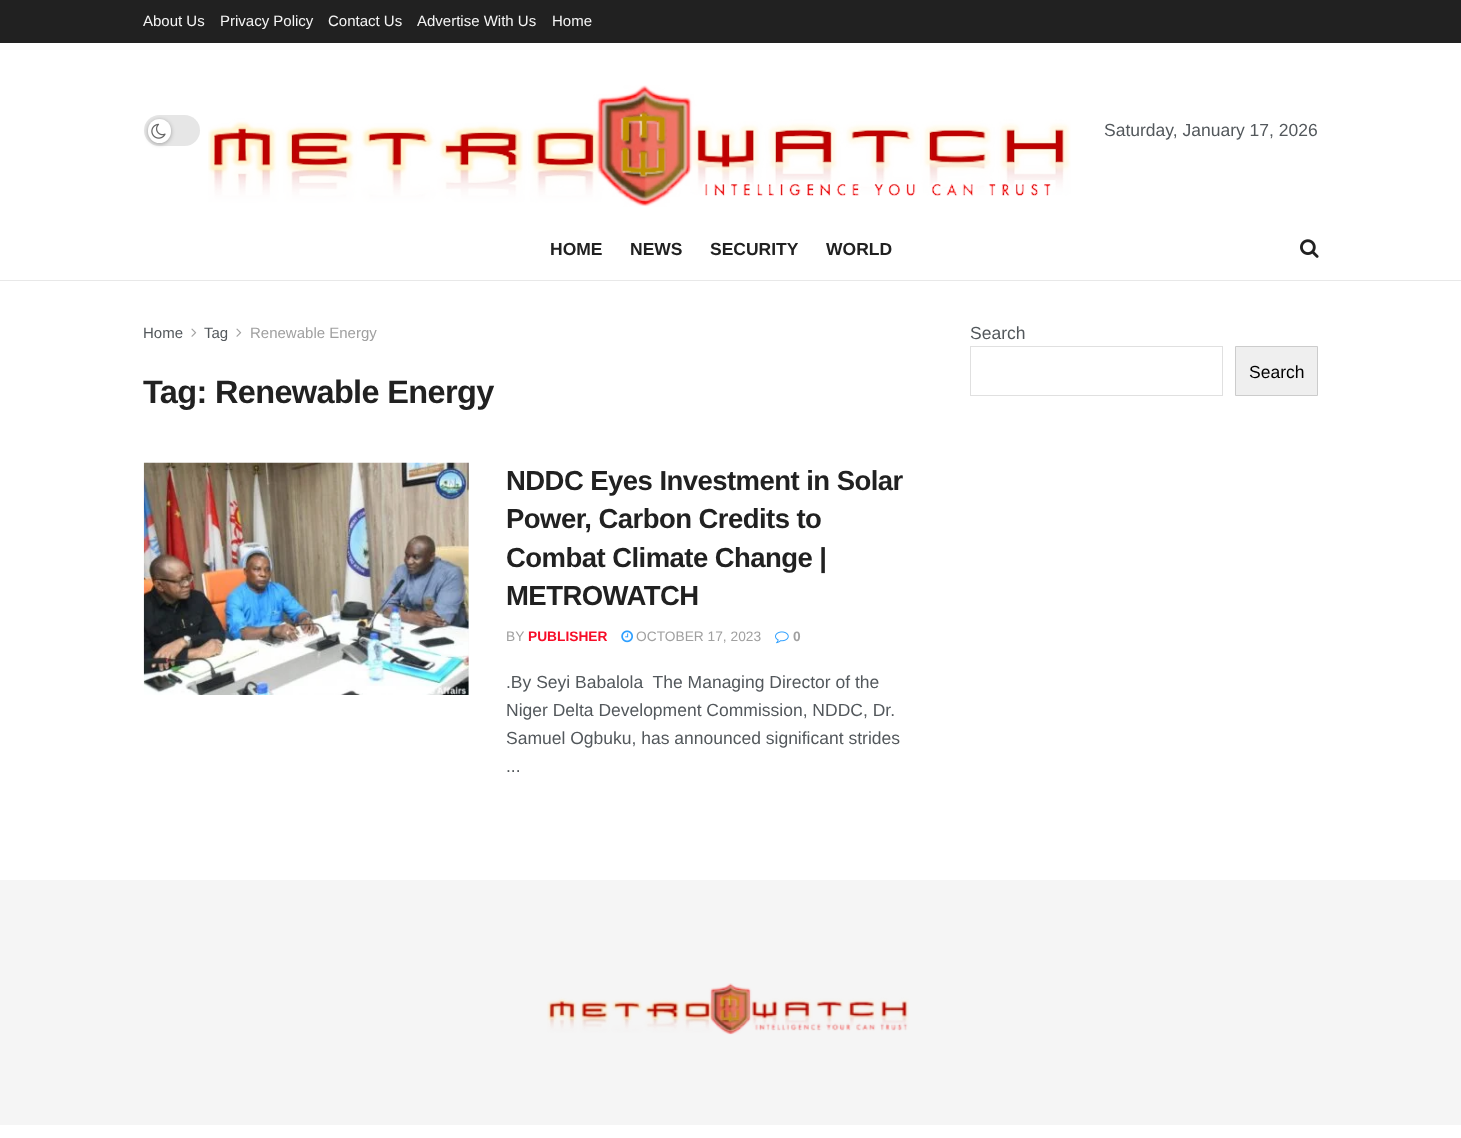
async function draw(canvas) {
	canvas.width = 1461;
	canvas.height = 1138;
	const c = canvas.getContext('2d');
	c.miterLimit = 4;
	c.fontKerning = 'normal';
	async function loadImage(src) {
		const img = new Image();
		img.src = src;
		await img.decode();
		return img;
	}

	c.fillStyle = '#fff';
	c.fillRect(0, 0, 1461, 1138);
	c.fillStyle = '#212121';
	c.fillRect(0, 0, 1461, 43);
	c.font = '15px Liberation Sans';
	c.fillStyle = '#f5f5f5';
	for (const [text, x, y] of [
		['About Us', 143, 26],
		['Privacy Policy', 220, 26],
		['Contact Us', 328, 26],
		['Advertise With Us', 417, 26],
		['Home', 552, 26],
	]) {
		c.fillText(text, x, y);
	}
	c.fillStyle = '#e6e6e6';
	c.beginPath();
	c.roundRect(144, 115, 56, 31, 15.5);
	c.fill();
	c.fillStyle = '#0000004d';
	c.filter = 'blur(2px)';
	c.beginPath();
	c.roundRect(148, 120, 23, 24, 11.5);
	c.fill();
	c.filter = 'none';
	c.fillStyle = '#fff';
	c.beginPath();
	c.roundRect(148, 119, 23, 24, 11.5);
	c.fill();
	c.drawImage(await loadImage('img1.png'), 151, 123, 15, 16);
	c.drawImage(await loadImage('img2.png'), 208, 85, 863, 122);
	c.font = '17.5px Liberation Sans';
	c.fillStyle = '#53585c';
	c.fillText('Saturday, January 17, 2026', 1104, 136);
	c.fillStyle = '#e8e8e8';
	c.fillRect(0, 280, 1461, 1);
	c.font = 'bold 17.5px Liberation Sans';
	c.fillStyle = '#212121';
	for (const [text, x, y] of [
		['HOME', 550, 255],
		['NEWS', 630, 255],
		['SECURITY', 710, 255],
		['WORLD', 826, 255],
	]) {
		c.fillText(text, x, y);
	}
	c.drawImage(await loadImage('img3.png'), 1300, 239, 19, 19);
	c.font = '15px Liberation Sans';
	c.fillStyle = '#53585c';
	c.fillText('Home', 143, 338);
	c.drawImage(await loadImage('img4.png'), 191, 328, 6, 9);
	c.fillText('Tag', 204, 338);
	c.drawImage(await loadImage('img4.png'), 236, 328, 6, 9);
	c.fillStyle = '#a0a0a0';
	c.fillText('Renewable Energy', 250, 338);
	c.letterSpacing = '-0.65px';
	c.font = 'bold 32.5px Liberation Sans';
	c.fillStyle = '#212121';
	c.fillText('Tag: Renewable Energy', 143, 403);
	c.fillStyle = '#f7f7f7';
	c.fillRect(468, 463, 1, 232);
	c.drawImage(await loadImage('img5.png'), 143, 462, 326, 233);
	c.letterSpacing = '-0.55px';
	c.font = 'bold 27.5px Liberation Sans';
	c.fillStyle = '#212121';
	for (const [text, x, y] of [
		['NDDC Eyes Investment in Solar', 506, 490],
		['Power, Carbon Credits to', 506, 528],
		['Combat Climate Change |', 506, 567],
		['METROWATCH', 506, 605],
	]) {
		c.fillText(text, x, y);
	}
	c.letterSpacing = '0px';
	c.font = '13.75px Liberation Sans';
	c.fillStyle = '#a0a0a0';
	c.fillText('BY', 506, 641);
	c.font = 'bold 13.75px Liberation Sans';
	c.fillStyle = '#f70d28';
	c.fillText('PUBLISHER', 528, 641);
	c.drawImage(await loadImage('img6.png'), 621, 630, 12, 13);
	c.font = '13.75px Liberation Sans';
	c.fillStyle = '#a0a0a0';
	c.fillText('OCTOBER 17, 2023', 636, 641);
	c.drawImage(await loadImage('img7.png'), 775, 631, 14, 13);
	c.font = 'bold 13.75px Liberation Sans';
	c.fillText('0', 793, 641);
	c.font = '17.5px Liberation Sans';
	c.fillStyle = '#53585c';
	for (const [text, x, y] of [
		['.By Seyi Babalola  The Managing Director of the', 506, 688],
		['Niger Delta Development Commission, NDDC, Dr.', 506, 716],
		['Samuel Ogbuku, has announced significant strides', 506, 744],
		['...', 506, 772],
		['Search', 970, 339],
	]) {
		c.fillText(text, x, y);
	}
	c.strokeStyle = '#e0e0e0';
	c.strokeRect(970.5, 346.5, 252, 49);
	c.fillStyle = '#efefef';
	c.beginPath();
	c.rect(1235.5, 346.5, 82, 49);
	c.fill();
	c.strokeStyle = '#ccc';
	c.stroke();
	c.fillStyle = '#000';
	c.fillText('Search', 1249, 378);
	c.fillStyle = '#f5f5f5';
	c.fillRect(0, 880, 1461, 245);
	c.drawImage(await loadImage('img8.png'), 547, 983, 362, 52);
}

draw(document.querySelector('canvas'));
